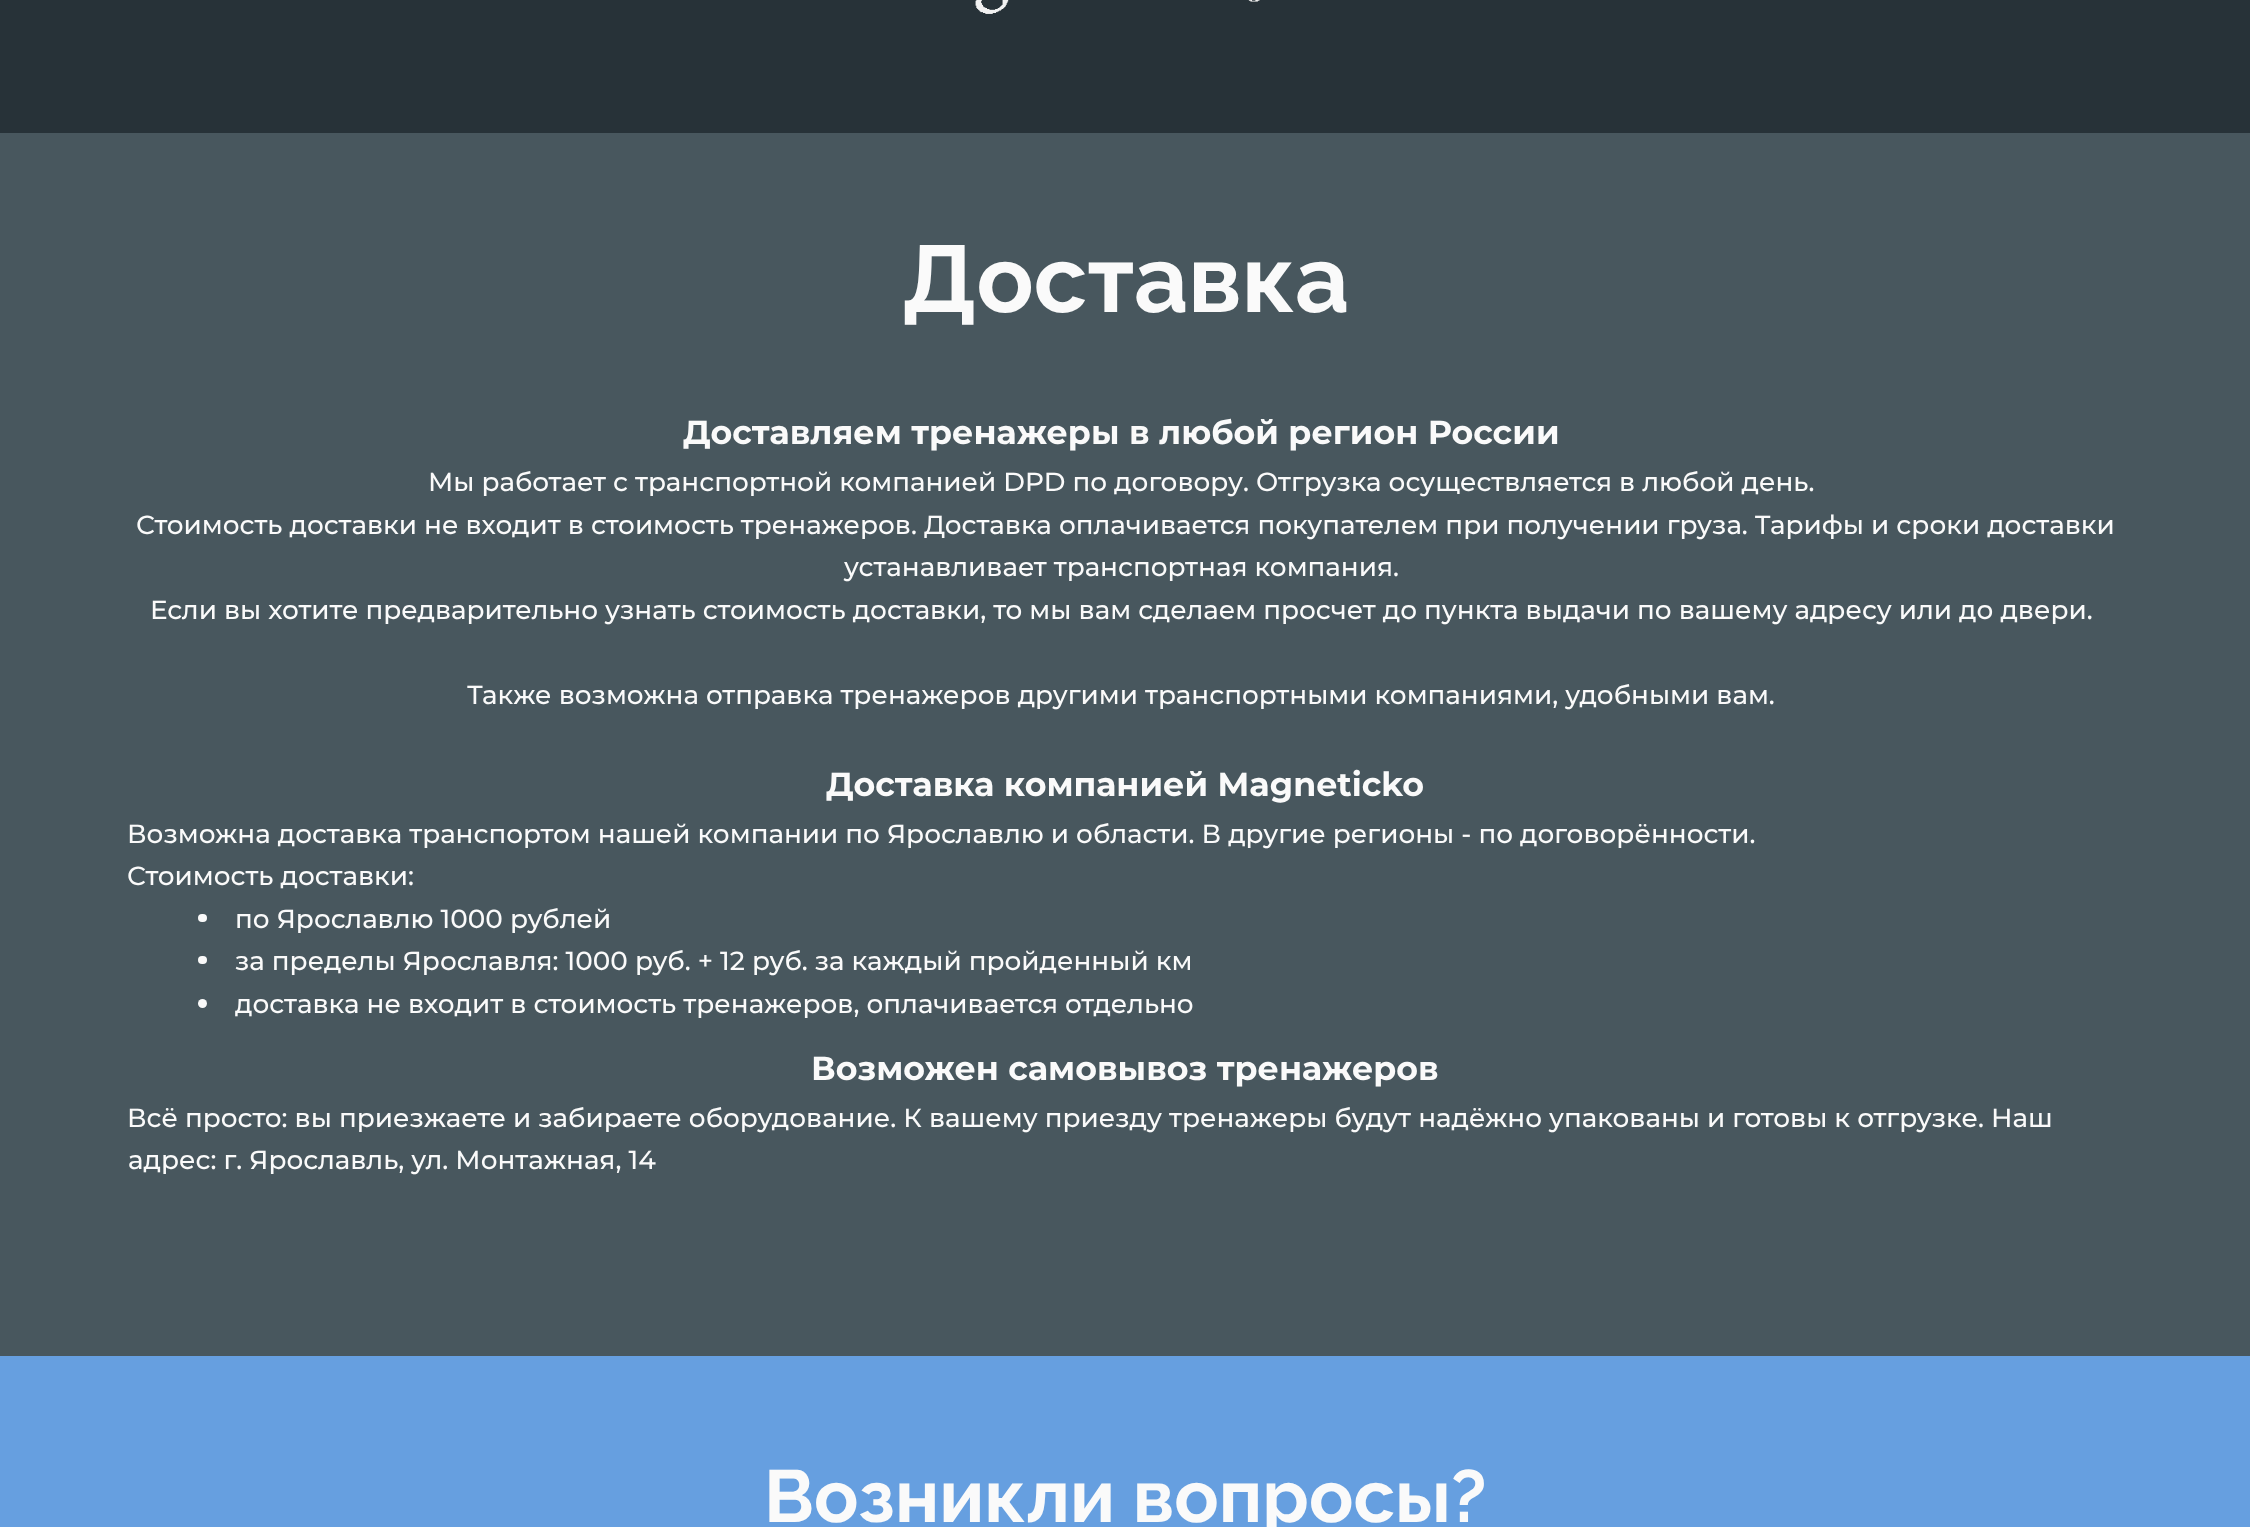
async function draw(canvas) {
	canvas.width = 2250;
	canvas.height = 1527;
	const c = canvas.getContext('2d');
	c.miterLimit = 4;
	c.fontKerning = 'normal';
	async function loadImage(src) {
		const img = new Image();
		img.src = src;
		await img.decode();
		return img;
	}

	c.fillStyle = '#48575e';
	c.fillRect(0, 0, 2250, 1527);
	c.fillStyle = '#273238';
	c.fillRect(0, 0, 2250, 133);
	c.drawImage(await loadImage('img1.png'), 975, 0, 285, 14);
	c.font = 'bold 94.5px Raleway';
	c.fillStyle = '#fafafa';
	c.fillText('Доставка', 902, 312);
	c.font = 'bold 33.25px Montserrat';
	c.fillText('Доставляем тренажеры в любой регион России', 683, 444);
	c.font = '500 26.25px Montserrat';
	for (const [text, x, y] of [
		['Мы работает с транспортной компанией DPD по договору. Отгрузка осуществляется в любой день.', 428, 491],
		['Стоимость доставки не входит в стоимость тренажеров. Доставка оплачивается покупателем при получении груза. Тарифы и сроки доставки', 136, 534],
		['устанавливает транспортная компания.', 844, 576],
		['Если вы хотите предварительно узнать стоимость доставки, то мы вам сделаем просчет до пункта выдачи по вашему адресу или до двери.', 150, 619],
		['Также возможна отправка тренажеров другими транспортными компаниями, удобными вам.', 467, 704],
	]) {
		c.fillText(text, x, y);
	}
	c.font = 'bold 33.25px Montserrat';
	c.fillText('Доставка компанией Magneticko', 826, 796);
	c.font = '500 26.25px Montserrat';
	c.fillText('Возможна доставка транспортом нашей компании по Ярославлю и области. В другие регионы - по договорённости.', 127, 843);
	c.fillText('Стоимость доставки:', 127, 885);
	c.beginPath();
	c.roundRect(198, 914, 9, 8, 4);
	c.fill();
	c.fillText('по Ярославлю 1000 рублей', 235, 928);
	c.beginPath();
	c.roundRect(198, 956, 9, 8, 4);
	c.fill();
	c.fillText('за пределы Ярославля: 1000 руб. + 12 руб. за каждый пройденный км', 235, 970);
	c.beginPath();
	c.arc(202.5, 1003.5, 4.5, 0, 2 * Math.PI);
	c.fill();
	c.fillText('доставка не входит в стоимость тренажеров, оплачивается отдельно', 235, 1013);
	c.font = 'bold 33.25px Montserrat';
	c.fillText('Возможен самовывоз тренажеров', 811, 1080);
	c.font = '500 26.25px Montserrat';
	c.fillText('Всё просто: вы приезжаете и забираете оборудование. К вашему приезду тренажеры будут надёжно упакованы и готовы к отгрузке. Наш', 127, 1127);
	c.fillText('адрес: г. Ярославль, ул. Монтажная, 14', 128, 1169);
	c.fillStyle = '#669fe0';
	c.fillRect(0, 1356, 2250, 171);
	c.font = 'bold 73.5px Raleway';
	c.fillStyle = '#fafafa';
	c.fillText('Возникли вопросы?', 764, 1522);
}

draw(document.querySelector('canvas'));
